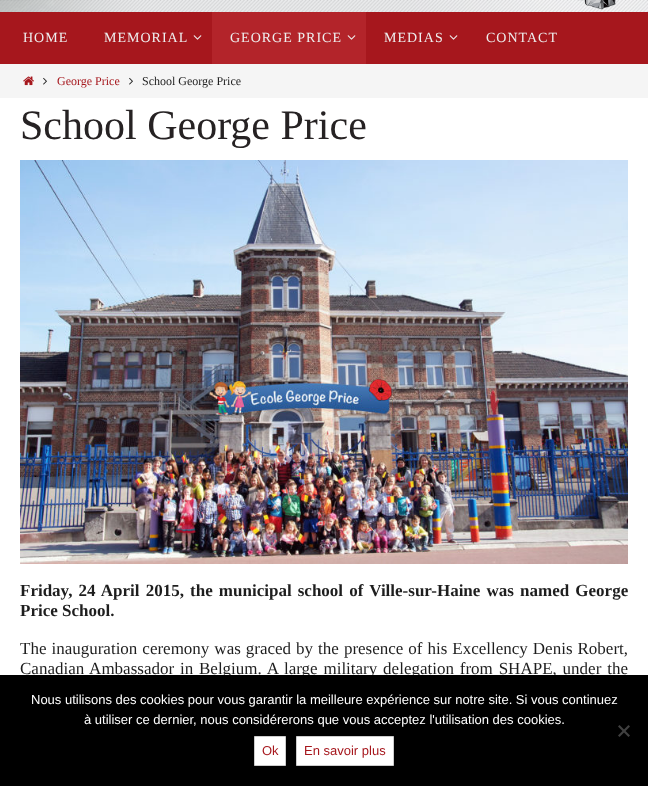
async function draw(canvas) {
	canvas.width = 648;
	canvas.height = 786;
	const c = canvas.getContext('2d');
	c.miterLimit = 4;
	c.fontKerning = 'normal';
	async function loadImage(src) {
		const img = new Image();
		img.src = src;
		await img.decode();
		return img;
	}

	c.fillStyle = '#fff';
	c.fillRect(0, 0, 648, 786);
	c.drawImage(await loadImage('img1.png'), 0, 0, 648, 12);
	c.drawImage(await loadImage('img2.png'), 0, 0, 648, 12);
	c.fillStyle = '#a6171d';
	c.fillRect(0, 12, 648, 52);
	c.letterSpacing = '1px';
	c.font = '14px Liberation Serif';
	c.fillStyle = '#eee';
	c.fillText('HOME', 23, 42);
	c.fillText('MEMORIAL', 104, 42);
	c.drawImage(await loadImage('img3.png'), 193, 35, 9, 5);
	c.fillStyle = '#b3242a';
	c.fillRect(212, 12, 154, 52);
	c.fillStyle = '#eee';
	c.fillText('GEORGE PRICE', 230, 42);
	c.drawImage(await loadImage('img4.png'), 347, 35, 9, 5);
	c.fillText('MEDIAS', 384, 42);
	c.drawImage(await loadImage('img3.png'), 449, 35, 9, 5);
	c.fillText('CONTACT', 486, 42);
	c.fillStyle = '#f5f5f5';
	c.fillRect(0, 64, 648, 34);
	c.drawImage(await loadImage('img5.png'), 23, 76, 11, 10);
	c.drawImage(await loadImage('img6.png'), 43, 77, 4, 8);
	c.letterSpacing = '0px';
	c.font = '12px Liberation Serif';
	c.fillStyle = '#a6171d';
	c.fillText('George Price', 57, 85);
	c.drawImage(await loadImage('img6.png'), 129, 77, 4, 8);
	c.fillStyle = '#1e1e1e';
	c.fillText('School George Price', 142, 85);
	c.font = '42px Liberation Serif';
	c.fillStyle = '#262223';
	c.fillText('School George Price', 20, 139);
	c.drawImage(await loadImage('img7.png'), 20, 160, 608, 404);
	c.wordSpacing = '1.9px';
	c.font = 'bold 17px Liberation Serif';
	c.fillStyle = '#1e1e1e';
	c.fillText('Friday, 24 April 2015, the municipal school of Ville-sur-Haine was named George', 20, 596);
	c.wordSpacing = '0px';
	c.fillText('Price School.', 20, 616);
	c.wordSpacing = '0.75px';
	c.font = '17px Liberation Serif';
	c.fillText('The inauguration ceremony was graced by the presence of his Excellency Denis Robert,', 20, 654);
	c.wordSpacing = '1.6px';
	c.fillText('Canadian Ambassador in Belgium. A large military delegation from SHAPE, under the', 20, 674);
	c.fillStyle = '#000';
	c.fillRect(0, 675, 648, 111);
	c.wordSpacing = '0px';
	c.font = '13px Liberation Sans';
	c.fillStyle = '#fff';
	c.fillText('Nous utilisons des cookies pour vous garantir la meilleure expérience sur notre site. Si vous continuez', 31, 704);
	c.fillText('à utiliser ce dernier, nous considérerons que vous acceptez l\'utilisation des cookies.', 84, 724);
	c.fillStyle = '#404040';
	c.beginPath();
	c.moveTo(628.5, 725);
	c.lineTo(630, 726.5);
	c.lineTo(619.5, 737);
	c.lineTo(618, 735.5);
	c.closePath();
	c.fill();
	c.beginPath();
	c.moveTo(618, 726.5);
	c.lineTo(619.5, 725);
	c.lineTo(630, 735.5);
	c.lineTo(628.5, 737);
	c.closePath();
	c.fill();
	c.fillStyle = '#fff';
	c.beginPath();
	c.rect(254.5, 736.5, 31, 29);
	c.fill();
	c.strokeStyle = '#ccc';
	c.stroke();
	c.fillStyle = '#a6171d';
	c.fillText('Ok', 262, 755);
	c.fillStyle = '#fff';
	c.beginPath();
	c.rect(296.5, 736.5, 97, 29);
	c.fill();
	c.stroke();
	c.fillStyle = '#a6171d';
	c.fillText('En savoir plus', 304, 755);
}

draw(document.querySelector('canvas'));
